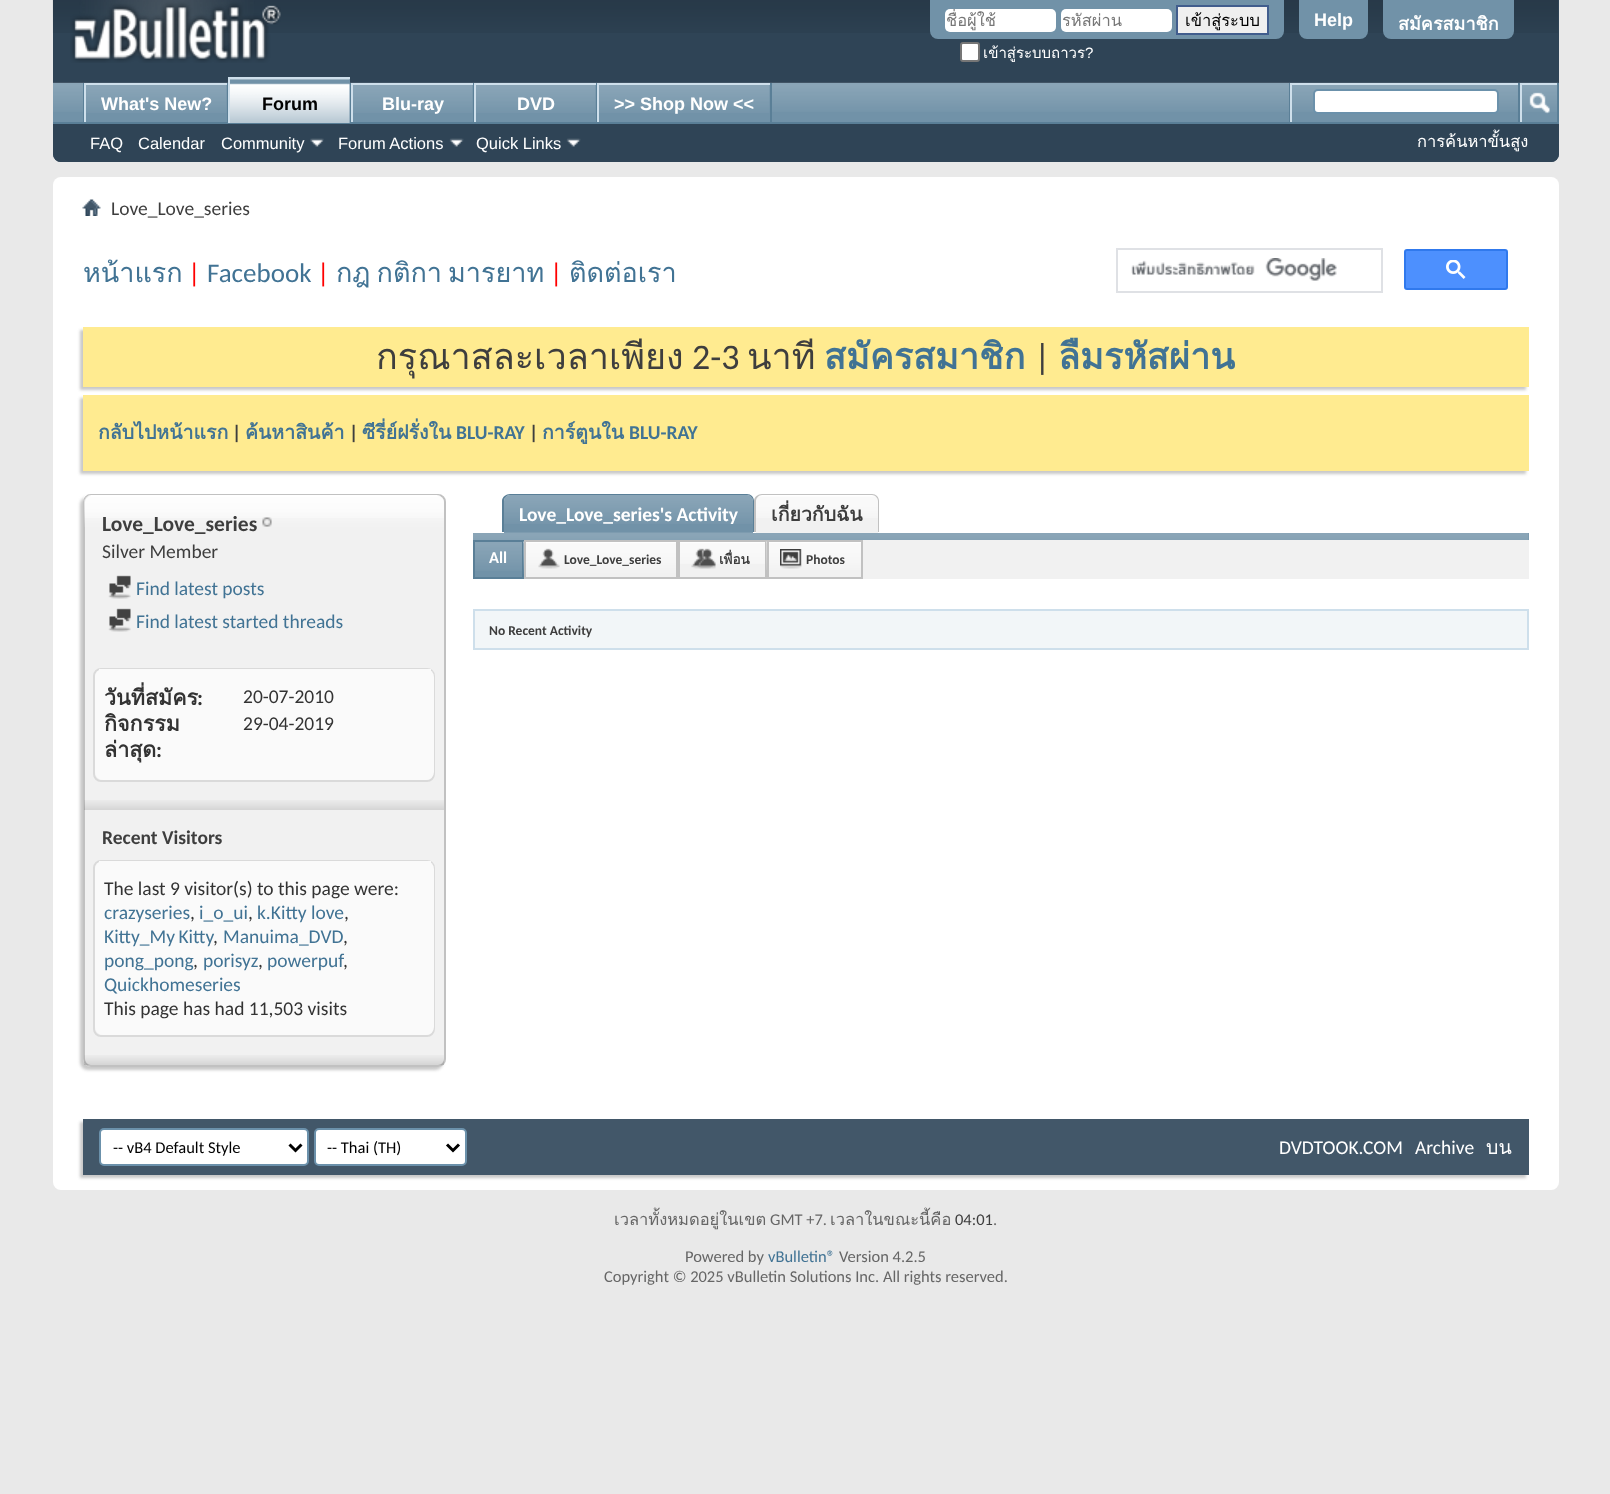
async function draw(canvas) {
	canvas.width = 1610;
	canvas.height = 1494;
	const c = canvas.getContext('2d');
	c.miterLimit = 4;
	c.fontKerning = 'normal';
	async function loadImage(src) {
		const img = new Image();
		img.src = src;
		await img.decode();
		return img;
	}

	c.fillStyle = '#e9e9e9';
	c.fillRect(0, 0, 1610, 1494);
	c.fillStyle = '#2f4456';
	c.beginPath();
	c.roundRect(53, 0, 1506, 162, [0, 0, 8, 8]);
	c.fill();
	c.drawImage(await loadImage('img1.png'), 52, 0, 1506, 33);
	c.drawImage(await loadImage('img2.png'), 70, 0, 211, 63);
	c.fillStyle = '#7192a8';
	c.beginPath();
	c.roundRect(930, 0, 354, 39, [0, 0, 8, 8]);
	c.fill();
	c.fillStyle = '#fff';
	c.beginPath();
	c.roundRect(945, 9, 111, 23, 5);
	c.fill();
	c.save();
	c.beginPath();
	c.rect(947, 6, 108, 27);
	c.clip();
	c.font = '16.5px Loma';
	c.fillStyle = '#777';
	c.fillText('ชื่อผู้ใช้', 946, 26);
	c.restore();
	c.beginPath();
	c.roundRect(1061, 9, 111, 23, 5);
	c.fill();
	c.font = '16.5px Loma';
	c.fillStyle = '#777';
	c.fillText('รหัสผ่าน', 1062, 26);
	c.fillStyle = '#efefef';
	c.beginPath();
	c.rect(1177, 6, 91, 28);
	c.fill();
	c.strokeStyle = '#415d8d';
	c.lineWidth = 2;
	c.stroke();
	c.fillStyle = '#000';
	c.fillText('เข้าสู่ระบบ', 1185, 26);
	c.fillStyle = '#fff';
	c.beginPath();
	c.roundRect(961, 43, 18, 18, 2);
	c.fill();
	c.strokeStyle = '#767676';
	c.stroke();
	c.font = '15px Loma';
	c.fillText('เข้าสู่ระบบถาวร', 983, 58);
	c.font = '15px Liberation Sans';
	c.fillText('?', 1085, 58);
	c.fillStyle = '#7192a8';
	c.beginPath();
	c.roundRect(1299, 0, 69, 39, [0, 0, 8, 8]);
	c.fill();
	c.font = 'bold 18px Liberation Sans';
	c.fillStyle = '#fff';
	c.fillText('Help', 1314, 26);
	c.fillStyle = '#7192a8';
	c.beginPath();
	c.roundRect(1383, 0, 131, 39, [0, 0, 8, 8]);
	c.fill();
	c.font = 'bold 18px Loma';
	c.fillStyle = '#fff';
	c.fillText('สมัครสมาชิก', 1398, 30);
	c.fillStyle = '#2f4456';
	c.beginPath();
	c.roundRect(53, 83, 1506, 79, [0, 0, 8, 8]);
	c.fill();
	c.fillStyle = '#7192a8';
	c.fillRect(53, 83, 1504, 39);
	c.drawImage(await loadImage('img3.png'), 53, 82, 1506, 30);
	for (const [x, y, w, h, color] of [
		[227, 83, 1, 40, '#5a7f97'],
		[83, 83, 1, 40, '#5a7f97'],
		[86, 85, 141, 27, '#7192a8'],
	]) {
		c.fillStyle = color;
		c.fillRect(x, y, w, h);
	}
	c.drawImage(await loadImage('img4.png'), 86, 85, 141, 28);
	c.fillStyle = '#cedfeb';
	c.fillRect(84, 83, 143, 2);
	c.fillRect(84, 83, 2, 40);
	c.font = 'bold 18px Liberation Sans';
	c.fillStyle = '#fff';
	c.fillText('What\'s New?', 101, 110);
	for (const [x, y, w, h, color] of [
		[350, 83, 1, 39, '#5a7f97'],
		[473, 83, 1, 40, '#5a7f97'],
		[351, 83, 122, 2, '#cedfeb'],
		[351, 83, 2, 40, '#cedfeb'],
		[596, 83, 1, 40, '#5a7f97'],
		[474, 83, 122, 2, '#cedfeb'],
		[474, 83, 2, 40, '#cedfeb'],
		[770, 83, 2, 40, '#5a7f97'],
		[597, 83, 173, 2, '#cedfeb'],
		[597, 83, 2, 40, '#cedfeb'],
		[53, 122, 1506, 2, '#5a7f97'],
		[230, 79, 120, 44, '#7192a8'],
	]) {
		c.fillStyle = color;
		c.fillRect(x, y, w, h);
	}
	c.drawImage(await loadImage('img5.png'), 230, 79, 120, 44);
	c.fillStyle = '#cedfeb';
	c.fillRect(228, 77, 122, 2);
	c.fillRect(228, 77, 2, 46);
	c.fillStyle = '#000';
	c.fillText('Forum', 262, 110);
	c.fillStyle = '#7192a8';
	c.fillRect(353, 85, 120, 27);
	c.drawImage(await loadImage('img6.png'), 353, 85, 120, 28);
	c.fillStyle = '#fff';
	c.fillText('Blu-ray', 382, 110);
	c.fillStyle = '#7192a8';
	c.fillRect(476, 85, 120, 27);
	c.drawImage(await loadImage('img6.png'), 476, 85, 120, 28);
	c.fillStyle = '#fff';
	c.fillText('DVD', 517, 110);
	c.fillStyle = '#7192a8';
	c.fillRect(599, 85, 171, 27);
	c.drawImage(await loadImage('img7.png'), 599, 85, 171, 28);
	c.fillStyle = '#fff';
	c.fillText('>> Shop Now <<', 614, 110);
	c.font = '16.5px Liberation Sans';
	for (const [text, x, y] of [
		['FAQ', 90, 149],
		['Calendar', 138, 149],
		['Community', 221, 149],
	]) {
		c.fillText(text, x, y);
	}
	c.drawImage(await loadImage('img8.png'), 310, 138, 14, 9);
	c.fillText('Forum Actions', 338, 149);
	c.drawImage(await loadImage('img9.png'), 449, 138, 15, 9);
	c.fillText('Quick Links', 476, 149);
	c.drawImage(await loadImage('img9.png'), 566, 138, 15, 9);
	for (const [x, y, w, h, color] of [
		[1289, 83, 1, 39, '#5a7f97'],
		[1290, 83, 228, 2, '#cedfeb'],
		[1290, 83, 2, 39, '#cedfeb'],
	]) {
		c.fillStyle = color;
		c.fillRect(x, y, w, h);
	}
	c.fillStyle = '#fff';
	c.beginPath();
	c.roundRect(1314, 90, 184, 23, 4);
	c.fill();
	c.strokeStyle = '#6b91ab';
	c.stroke();
	for (const [x, y, w, h, color] of [
		[1557, 83, 2, 39, '#5a7f97'],
		[1518, 83, 2, 39, '#5a7f97'],
		[1520, 83, 37, 2, '#cedfeb'],
		[1520, 83, 2, 39, '#cedfeb'],
	]) {
		c.fillStyle = color;
		c.fillRect(x, y, w, h);
	}
	c.drawImage(await loadImage('img10.png'), 1529, 92, 21, 22);
	c.font = '16.5px Loma';
	c.fillStyle = '#fff';
	c.fillText('การค้นหาขั้นสูง', 1417, 147);
	c.beginPath();
	c.roundRect(53, 177, 1506, 1013, 8);
	c.fill();
	c.drawImage(await loadImage('img11.png'), 82, 199, 19, 17);
	c.font = '19.5px Carlito';
	c.fillStyle = '#3e3e3e';
	c.fillText('Love_Love_series', 111, 215);
	c.font = '27px Loma';
	c.fillStyle = '#417394';
	c.fillText('หน้าแรก', 83, 282);
	c.font = '27px Carlito';
	c.fillStyle = '#f00';
	c.fillText('|', 188, 282);
	c.fillStyle = '#417394';
	c.fillText('Facebook', 207, 282);
	c.fillStyle = '#f00';
	c.fillText('|', 317, 282);
	c.wordSpacing = '-3px';
	c.font = '27px Loma';
	c.fillStyle = '#417394';
	c.fillText('กฎ กติกา มารยาท', 336, 282);
	c.wordSpacing = '0px';
	c.font = '27px Carlito';
	c.fillStyle = '#f00';
	c.fillText('|', 550, 282);
	c.font = '27px Loma';
	c.fillStyle = '#417394';
	c.fillText('ติดต่อเรา', 569, 282);
	c.strokeStyle = '#dfe1e5';
	c.strokeRect(1117, 249, 265, 43);
	c.drawImage(await loadImage('img12.png'), 1131, 258, 206, 23);
	c.fillStyle = '#4d90fe';
	c.beginPath();
	c.roundRect(1405, 250, 102, 39, 2);
	c.fill();
	c.strokeStyle = '#3079ed';
	c.stroke();
	c.drawImage(await loadImage('img13.png'), 1446, 260, 20, 19);
	c.fillStyle = '#c8c8c8';
	c.filter = 'blur(1.5px)';
	c.beginPath();
	c.rect(80, 330, 1446, 60);
	c.fill();
	c.filter = 'none';
	c.fillStyle = '#ffeb90';
	c.fillRect(83, 327, 1446, 60);
	c.font = '36px Loma';
	c.fillStyle = '#3e3e3e';
	c.fillText('กรุณาสละเวลาเพียง', 376, 369);
	c.font = '36px Carlito';
	c.fillText('2-3', 692, 369);
	c.font = '36px Loma';
	c.fillText('นาที', 747, 369);
	c.font = 'bold 36px Loma';
	c.fillStyle = '#417394';
	c.fillText('สมัครสมาชิก', 824, 369);
	c.font = '36px Carlito';
	c.fillStyle = '#3e3e3e';
	c.fillText('|', 1034, 369);
	c.font = 'bold 36px Loma';
	c.fillStyle = '#417394';
	c.fillText('ลืมรหัสผ่าน', 1058, 369);
	c.fillStyle = '#c8c8c8';
	c.filter = 'blur(1.5px)';
	c.beginPath();
	c.rect(80, 398, 1446, 76);
	c.fill();
	c.filter = 'none';
	c.fillStyle = '#ffeb90';
	c.fillRect(83, 395, 1446, 76);
	c.font = 'bold 19.5px Loma';
	c.fillStyle = '#417394';
	c.fillText('กลับไปหน้าแรก', 98, 439);
	c.font = 'bold 19.5px Carlito';
	c.fillStyle = '#3e3e3e';
	c.fillText('|', 232, 439);
	c.font = 'bold 19.5px Loma';
	c.fillStyle = '#417394';
	c.fillText('ค้นหาสินค้า', 245, 439);
	c.font = 'bold 19.5px Carlito';
	c.fillStyle = '#3e3e3e';
	c.fillText('|', 349, 439);
	c.font = 'bold 19.5px Loma';
	c.fillStyle = '#417394';
	c.fillText('ซีรี่ย์ฝรั่งใน', 362, 439);
	c.fillText('การ์ตูนใน', 542, 439);
	c.font = 'bold 19.5px Carlito';
	c.fillText('BLU-RAY', 456, 439);
	c.fillStyle = '#3e3e3e';
	c.fillText('|', 529, 439);
	c.fillStyle = '#417394';
	c.fillText('BLU-RAY', 629, 439);
	c.fillStyle = '#c8c8c8';
	c.filter = 'blur(1.5px)';
	c.beginPath();
	c.roundRect(80, 497, 363, 573, 8);
	c.fill();
	c.filter = 'none';
	c.fillStyle = '#f1f1f1';
	c.beginPath();
	c.roundRect(83, 494, 363, 573, 8);
	c.fill();
	c.drawImage(await loadImage('img14.png'), 83, 495, 362, 23);
	c.beginPath();
	c.roundRect(84, 495, 361, 571, 7);
	c.strokeStyle = '#c1c1c1';
	c.stroke();
	c.drawImage(await loadImage('img15.png'), 84, 495, 360, 32);
	c.font = 'bold 21.5px Carlito';
	c.fillStyle = '#3e3e3e';
	c.fillText('Love_Love_series', 102, 531);
	c.drawImage(await loadImage('img16.png'), 262, 517, 10, 10);
	c.font = '19.5px Carlito';
	c.fillText('Silver Member', 102, 558);
	c.drawImage(await loadImage('img17.png'), 108, 575, 23, 24);
	c.fillStyle = '#417394';
	c.fillText('Find latest posts', 136, 595);
	c.drawImage(await loadImage('img17.png'), 108, 608, 23, 24);
	c.fillText('Find latest started threads', 136, 628);
	c.beginPath();
	c.roundRect(94, 669, 340, 112, 7);
	c.strokeStyle = '#dadada';
	c.stroke();
	c.fillStyle = '#fafafa';
	c.beginPath();
	c.roundRect(95, 669, 339, 111, 8);
	c.fill();
	c.fillRect(99, 669, 332, 2);
	c.font = 'bold 21.5px Loma';
	c.fillStyle = '#333';
	c.fillText('วันที่สมัคร', 104, 705);
	c.font = 'bold 21.5px Carlito';
	c.fillText(':', 197, 705);
	c.font = '19.5px Carlito';
	c.fillText('20-07-2010', 243, 703);
	c.font = 'bold 21.5px Loma';
	c.fillText('กิจกรรม', 104, 731);
	c.fillText('ล่าสุด', 104, 757);
	c.font = 'bold 21.5px Carlito';
	c.fillText(':', 156, 757);
	c.font = '19.5px Carlito';
	c.fillText('29-04-2019', 243, 730);
	c.drawImage(await loadImage('img18.png'), 84, 800, 360, 10);
	c.font = 'bold 19.5px Carlito';
	c.fillStyle = '#3e3e3e';
	c.fillText('Recent Visitors', 102, 844);
	c.beginPath();
	c.roundRect(94, 861, 340, 175, 7);
	c.stroke();
	c.fillStyle = '#fafafa';
	c.beginPath();
	c.roundRect(95, 861, 339, 174, 8);
	c.fill();
	c.fillRect(99, 861, 332, 2);
	c.font = '19.5px Carlito';
	c.fillStyle = '#333';
	c.fillText('The last 9 visitor(s) to this page were:', 104, 895);
	c.fillStyle = '#417394';
	c.fillText('crazyseries', 104, 919);
	c.fillStyle = '#333';
	c.fillText(',', 190, 919);
	c.fillStyle = '#417394';
	c.fillText('i_o_ui', 199, 919);
	c.fillStyle = '#333';
	c.fillText(',', 248, 919);
	c.fillStyle = '#417394';
	c.fillText('k.Kitty love', 257, 919);
	c.fillStyle = '#333';
	c.fillText(',', 344, 919);
	c.wordSpacing = '-1px';
	c.fillStyle = '#417394';
	c.fillText('Kitty_My Kitty', 104, 943);
	c.wordSpacing = '0px';
	c.fillStyle = '#333';
	c.fillText(',', 213, 943);
	c.fillStyle = '#417394';
	c.fillText('Manuima_DVD', 223, 943);
	c.fillStyle = '#333';
	c.fillText(',', 343, 943);
	c.fillStyle = '#417394';
	c.fillText('pong_pong', 104, 967);
	c.fillStyle = '#333';
	c.fillText(',', 193, 967);
	c.fillStyle = '#417394';
	c.fillText('porisyz', 203, 967);
	c.fillStyle = '#333';
	c.fillText(',', 258, 967);
	c.fillStyle = '#417394';
	c.fillText('powerpuf', 267, 967);
	c.fillStyle = '#333';
	c.fillText(',', 343, 967);
	c.fillStyle = '#417394';
	c.fillText('Quickhomeseries', 104, 991);
	c.fillStyle = '#333';
	c.fillText('This page has had 11,503 visits', 104, 1015);
	c.drawImage(await loadImage('img19.png'), 84, 1055, 360, 10);
	c.fillStyle = '#7192a8';
	c.beginPath();
	c.roundRect(504, 495, 249, 38, [6, 6, 0, 0]);
	c.fill();
	c.drawImage(await loadImage('img20.png'), 504, 495, 249, 29);
	c.fillStyle = '#5a7f97';
	c.beginPath();
	c.moveTo(510, 494);
	c.lineTo(747, 494);
	c.bezierCurveTo(751, 494, 754, 497, 754, 501);
	c.lineTo(754, 532);
	c.lineTo(502, 532);
	c.lineTo(502, 501);
	c.bezierCurveTo(502, 497, 506, 494, 510, 494);
	c.closePath();
	c.moveTo(510, 495);
	c.lineTo(747, 495);
	c.bezierCurveTo(750, 495, 753, 498, 753, 501);
	c.lineTo(753, 532);
	c.lineTo(504, 532);
	c.lineTo(504, 501);
	c.bezierCurveTo(504, 498, 507, 495, 510, 495);
	c.closePath();
	c.fill('evenodd');
	c.font = 'bold 19.5px Carlito';
	c.fillStyle = '#fff';
	c.fillText('Love_Love_series\'s Activity', 519, 521);
	c.fillStyle = '#f1f1f1';
	c.beginPath();
	c.roundRect(756, 495, 122, 38, [6, 6, 0, 0]);
	c.fill();
	c.drawImage(await loadImage('img21.png'), 756, 495, 122, 23);
	c.fillStyle = '#c1c1c1';
	c.beginPath();
	c.moveTo(762, 494);
	c.lineTo(872, 494);
	c.bezierCurveTo(876, 494, 879, 497, 879, 501);
	c.lineTo(879, 532);
	c.lineTo(754, 532);
	c.lineTo(754, 501);
	c.bezierCurveTo(754, 497, 758, 494, 762, 494);
	c.closePath();
	c.moveTo(762, 495);
	c.lineTo(872, 495);
	c.bezierCurveTo(875, 495, 878, 498, 878, 501);
	c.lineTo(878, 532);
	c.lineTo(756, 532);
	c.lineTo(756, 501);
	c.bezierCurveTo(756, 498, 759, 495, 762, 495);
	c.closePath();
	c.fill('evenodd');
	c.font = 'bold 19.5px Loma';
	c.fillStyle = '#3e3e3e';
	c.fillText('เกี่ยวกับฉัน', 771, 521);
	c.fillStyle = '#7192a8';
	c.fillRect(473, 533, 1056, 7);
	c.drawImage(await loadImage('img22.png'), 473, 532, 1056, 8);
	c.fillStyle = '#f1f1f1';
	c.fillRect(526, 540, 1003, 39);
	c.fillStyle = '#7192a8';
	c.fillRect(475, 542, 47, 35);
	c.drawImage(await loadImage('img23.png'), 475, 542, 47, 29);
	c.strokeStyle = '#5a7f97';
	c.strokeRect(474, 541, 49, 37);
	c.font = 'bold 16.5px Carlito';
	c.fillStyle = '#fff';
	c.fillText('All', 489, 563);
	c.drawImage(await loadImage('img24.png'), 523, 541, 153, 33);
	c.strokeStyle = '#c1c1c1';
	c.strokeRect(525, 541, 152, 37);
	c.drawImage(await loadImage('img25.png'), 538, 548, 22, 21);
	c.font = 'bold 13.5px Carlito';
	c.fillStyle = '#3e3e3e';
	c.fillText('Love_Love_series', 564, 564);
	c.drawImage(await loadImage('img26.png'), 680, 542, 85, 22);
	c.strokeRect(679, 541, 87, 37);
	c.drawImage(await loadImage('img27.png'), 691, 548, 25, 21);
	c.font = 'bold 13.5px Loma';
	c.fillText('เพื่อน', 719, 564);
	c.drawImage(await loadImage('img28.png'), 766, 541, 95, 29);
	c.strokeRect(768, 541, 94, 37);
	c.drawImage(await loadImage('img29.png'), 780, 549, 22, 20);
	c.font = 'bold 13.5px Carlito';
	c.fillText('Photos', 806, 564);
	c.fillStyle = '#f2f6f8';
	c.beginPath();
	c.rect(474, 610, 1054, 39);
	c.fill();
	c.strokeStyle = '#cedfeb';
	c.stroke();
	c.fillStyle = '#3e3e3e';
	c.fillText('No Recent Activity', 489, 635);
	c.fillStyle = '#c8c8c8';
	c.filter = 'blur(1.5px)';
	c.beginPath();
	c.rect(80, 1122, 1446, 56);
	c.fill();
	c.filter = 'none';
	c.fillStyle = '#425769';
	c.fillRect(83, 1119, 1446, 56);
	c.fillStyle = '#fff';
	c.beginPath();
	c.roundRect(100, 1129, 208, 36, 4);
	c.fill();
	c.strokeStyle = '#6b91ab';
	c.stroke();
	c.beginPath();
	c.moveTo(289.5, 1144.5);
	c.lineTo(295.5, 1150.5);
	c.lineTo(301.5, 1144.5);
	c.strokeStyle = '#000';
	c.lineWidth = 3;
	c.stroke();
	c.font = '16.5px Carlito';
	c.fillStyle = '#000';
	c.fillText('-- vB4 Default Style', 113, 1153);
	c.fillStyle = '#fff';
	c.beginPath();
	c.roundRect(315, 1129, 151, 36, 4);
	c.fill();
	c.strokeStyle = '#6b91ab';
	c.lineWidth = 2;
	c.stroke();
	c.beginPath();
	c.moveTo(447, 1144.5);
	c.lineTo(453, 1150.5);
	c.lineTo(459, 1144.5);
	c.strokeStyle = '#000';
	c.lineWidth = 3;
	c.stroke();
	c.fillStyle = '#000';
	c.fillText('-- Thai (TH)', 327, 1153);
	c.font = '19.5px Carlito';
	c.fillStyle = '#fff';
	c.fillText('DVDTOOK.COM', 1279, 1154);
	c.fillText('Archive', 1415, 1154);
	c.font = '19.5px Loma';
	c.fillText('บน', 1486, 1154);
	c.font = '16.5px Loma';
	c.fillStyle = '#666';
	c.fillText('เวลาทั้งหมดอยู่ในเขต', 614, 1225);
	c.font = '16.5px Carlito';
	c.fillText('GMT +7.', 770, 1225);
	c.font = '16.5px Loma';
	c.fillText('เวลาในขณะนี้คือ', 830, 1225);
	c.font = '16.5px Carlito';
	c.fillStyle = '#3e3e3e';
	c.fillText('04:01', 955, 1225);
	c.fillStyle = '#666';
	c.fillText('.', 993, 1225);
	c.fillText('Powered by', 685, 1262);
	c.fillStyle = '#417394';
	c.fillText('vBulletin®', 768, 1262);
	c.fillStyle = '#666';
	c.fillText('Version 4.2.5', 839, 1262);
	c.fillText('Copyright © 2025 vBulletin Solutions Inc. All rights reserved.', 604, 1282);
}

draw(document.querySelector('canvas'));
